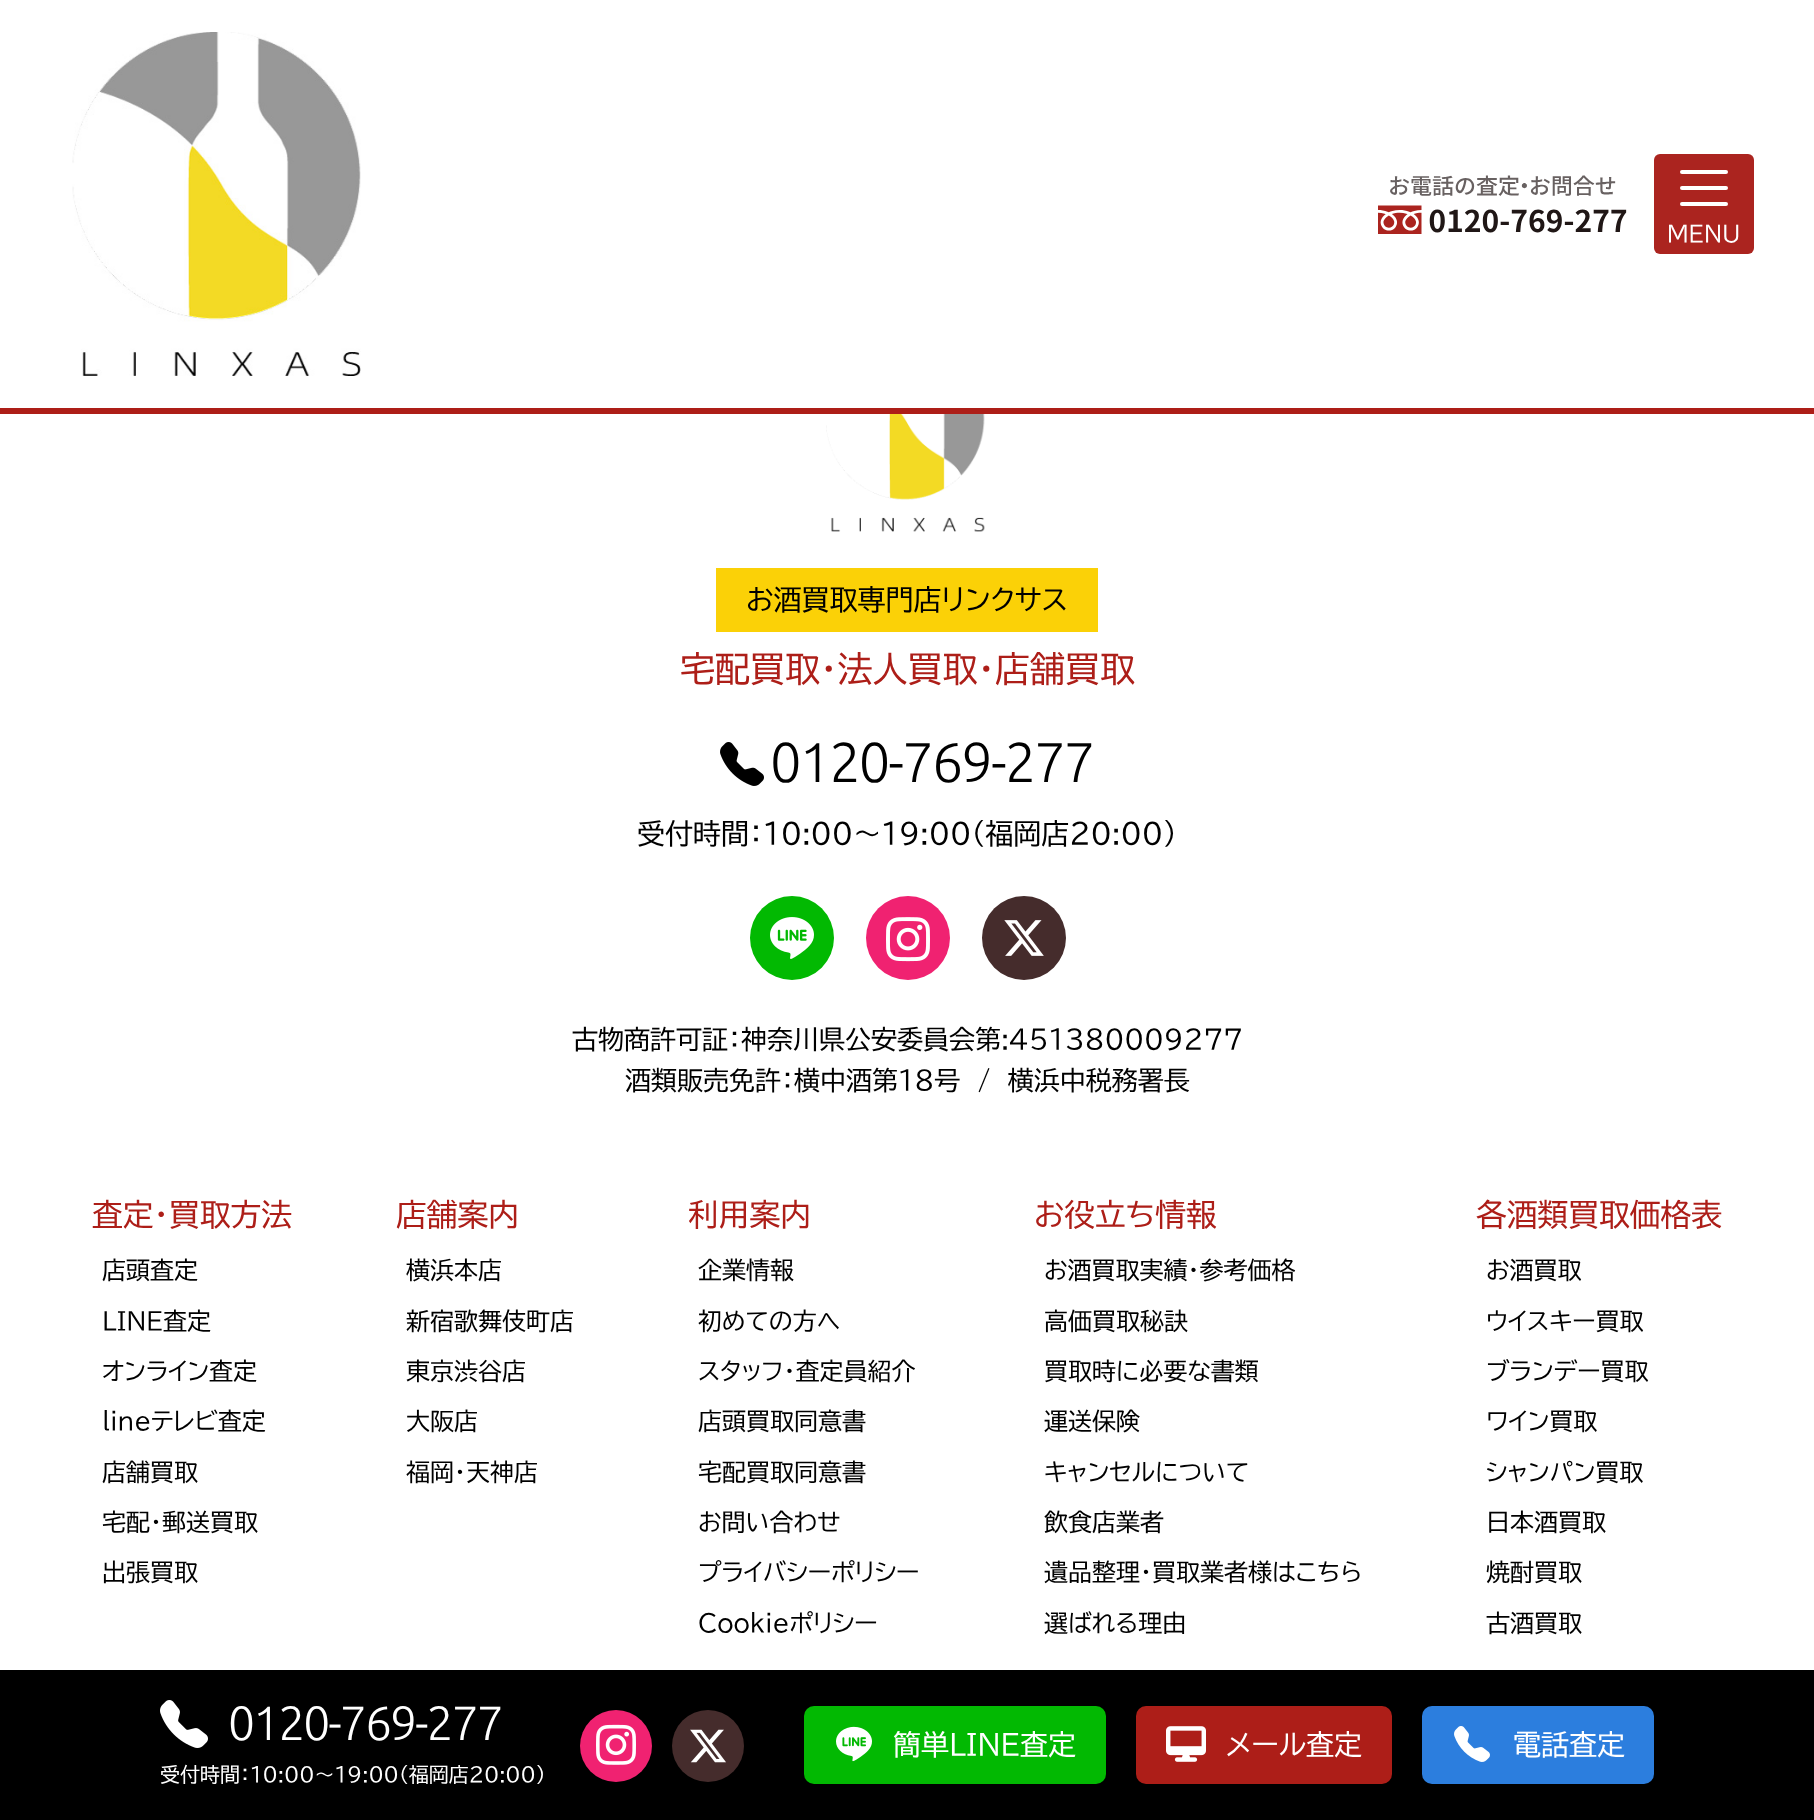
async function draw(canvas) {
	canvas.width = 1814;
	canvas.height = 1820;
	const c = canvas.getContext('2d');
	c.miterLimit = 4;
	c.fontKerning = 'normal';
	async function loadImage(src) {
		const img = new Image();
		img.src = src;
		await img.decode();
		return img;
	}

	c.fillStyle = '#fff';
	c.fillRect(0, 0, 1814, 1820);
	c.fillStyle = '#ad1e18';
	c.fillRect(0, 408, 1814, 6);
	c.drawImage(await loadImage('img1.png'), 72, 32, 289, 344);
	c.drawImage(await loadImage('img2.png'), 1378, 175, 249, 59);
	c.fillStyle = '#ab241f';
	c.beginPath();
	c.roundRect(1654, 154, 100, 100, 6);
	c.fill();
	c.fillStyle = '#fff';
	c.beginPath();
	c.roundRect(1680, 170, 48, 4, 2);
	c.fill();
	c.beginPath();
	c.roundRect(1680, 186, 48, 4, 2);
	c.fill();
	c.beginPath();
	c.roundRect(1680, 202, 48, 4, 2);
	c.fill();
	c.font = '22px BIZ UDPGothic';
	c.fillText('MENU', 1667, 242);
	c.drawImage(await loadImage('img3.png'), 826, 414, 159, 118);
	c.fillStyle = '#fbd107';
	c.fillRect(716, 568, 382, 64);
	c.font = '28px BIZ UDPGothic';
	c.fillStyle = '#000';
	c.fillText('お酒買取専門店リンクサス', 746, 610);
	c.font = '35px BIZ UDPGothic';
	c.fillStyle = '#ad1e18';
	c.fillText('宅配買取・法人買取・店舗買取', 680, 682);
	c.drawImage(await loadImage('img4.png'), 720, 742, 44, 44);
	c.letterSpacing = '-2px';
	c.font = '300 56px Ubuntu';
	c.fillStyle = '#000';
	c.fillText('0120-769-277', 770, 782);
	c.letterSpacing = '0px';
	c.font = '28px BIZ UDPGothic';
	c.fillText('受付時間：10:00～19:00（福岡店20:00）', 637, 844);
	c.fillStyle = '#02b902';
	c.beginPath();
	c.arc(792, 938, 42, 0, 2 * Math.PI);
	c.fill();
	c.drawImage(await loadImage('img5.png'), 770, 917, 44, 42);
	c.fillStyle = '#f02271';
	c.beginPath();
	c.arc(908, 938, 42, 0, 2 * Math.PI);
	c.fill();
	c.drawImage(await loadImage('img6.png'), 886, 917, 44, 45);
	c.fillStyle = '#452c2c';
	c.beginPath();
	c.arc(1024, 938, 42, 0, 2 * Math.PI);
	c.fill();
	c.drawImage(await loadImage('img7.png'), 1004, 920, 40, 36);
	c.font = '26px BIZ UDPGothic';
	c.fillStyle = '#000';
	c.fillText('古物商許可証：神奈川県公安委員会第:451380009277', 572, 1049);
	c.fillText('酒類販売免許：横中酒第18号　/　横浜中税務署長', 625, 1090);
	c.font = '30.75px BIZ UDPGothic';
	c.fillStyle = '#ad1e18';
	c.fillText('査定・買取方法', 92, 1226);
	c.font = '24px BIZ UDPGothic';
	c.fillStyle = '#000';
	for (const [text, x, y] of [
		['店頭査定', 102, 1279],
		['LINE査定', 102, 1330],
		['オンライン査定', 102, 1380],
		['lineテレビ査定', 102, 1430],
		['店舗買取', 102, 1481],
		['宅配・郵送買取', 102, 1531],
		['出張買取', 102, 1581],
	]) {
		c.fillText(text, x, y);
	}
	c.font = '30.75px BIZ UDPGothic';
	c.fillStyle = '#ad1e18';
	c.fillText('店舗案内', 396, 1226);
	c.font = '24px BIZ UDPGothic';
	c.fillStyle = '#000';
	for (const [text, x, y] of [
		['横浜本店', 406, 1279],
		['新宿歌舞伎町店', 406, 1330],
		['東京渋谷店', 406, 1380],
		['大阪店', 406, 1430],
		['福岡・天神店', 406, 1481],
	]) {
		c.fillText(text, x, y);
	}
	c.font = '30.75px BIZ UDPGothic';
	c.fillStyle = '#ad1e18';
	c.fillText('利用案内', 688, 1226);
	c.font = '24px BIZ UDPGothic';
	c.fillStyle = '#000';
	for (const [text, x, y] of [
		['企業情報', 698, 1279],
		['初めての方へ', 698, 1330],
		['スタッフ・査定員紹介', 698, 1380],
		['店頭買取同意書', 698, 1430],
		['宅配買取同意書', 698, 1481],
		['お問い合わせ', 698, 1531],
		['プライバシーポリシー', 698, 1581],
		['Cookieポリシー', 698, 1632],
	]) {
		c.fillText(text, x, y);
	}
	c.font = '30.75px BIZ UDPGothic';
	c.fillStyle = '#ad1e18';
	c.fillText('お役立ち情報', 1034, 1226);
	c.font = '24px BIZ UDPGothic';
	c.fillStyle = '#000';
	for (const [text, x, y] of [
		['お酒買取実績・参考価格', 1044, 1279],
		['高価買取秘訣', 1044, 1330],
		['買取時に必要な書類', 1044, 1380],
		['運送保険', 1044, 1430],
		['キャンセルについて', 1044, 1481],
		['飲食店業者', 1044, 1531],
		['遺品整理・買取業者様はこちら', 1044, 1581],
		['選ばれる理由', 1044, 1632],
	]) {
		c.fillText(text, x, y);
	}
	c.font = '30.75px BIZ UDPGothic';
	c.fillStyle = '#ad1e18';
	c.fillText('各酒類買取価格表', 1476, 1226);
	c.font = '24px BIZ UDPGothic';
	c.fillStyle = '#000';
	for (const [text, x, y] of [
		['お酒買取', 1486, 1279],
		['ウイスキー買取', 1486, 1330],
		['ブランデー買取', 1486, 1380],
		['ワイン買取', 1486, 1430],
		['シャンパン買取', 1486, 1481],
		['日本酒買取', 1486, 1531],
		['焼酎買取', 1486, 1581],
		['古酒買取', 1486, 1632],
	]) {
		c.fillText(text, x, y);
	}
	c.fillRect(0, 1670, 1814, 150);
	c.drawImage(await loadImage('img8.png'), 160, 1700, 48, 48);
	c.letterSpacing = '-2px';
	c.font = '300 48px Ubuntu';
	c.fillStyle = '#fff';
	c.fillText('0120-769-277', 228, 1740);
	c.letterSpacing = '0px';
	c.font = '20px BIZ UDPGothic';
	c.fillText('受付時間：10:00～19:00（福岡店20:00）', 160, 1782);
	c.fillStyle = '#f02271';
	c.beginPath();
	c.arc(616, 1746, 36, 0, 2 * Math.PI);
	c.fill();
	c.drawImage(await loadImage('img9.png'), 596, 1724, 40, 41);
	c.fillStyle = '#452c2c';
	c.beginPath();
	c.arc(708, 1746, 36, 0, 2 * Math.PI);
	c.fill();
	c.drawImage(await loadImage('img10.png'), 690, 1729, 36, 34);
	c.fillStyle = '#02b902';
	c.beginPath();
	c.roundRect(804, 1706, 302, 78, 10);
	c.fill();
	c.drawImage(await loadImage('img11.png'), 836, 1726, 36, 36);
	c.font = '28px BIZ UDPGothic';
	c.fillStyle = '#fff';
	c.fillText('簡単LINE査定', 893, 1755);
	c.fillStyle = '#ad1e18';
	c.beginPath();
	c.roundRect(1136, 1706, 256, 78, 10);
	c.fill();
	c.drawImage(await loadImage('img12.png'), 1166, 1726, 40, 36);
	c.fillStyle = '#fff';
	c.fillText('メール査定', 1226, 1755);
	c.fillStyle = '#2c7ede';
	c.beginPath();
	c.roundRect(1422, 1706, 232, 78, 10);
	c.fill();
	c.drawImage(await loadImage('img13.png'), 1454, 1726, 36, 36);
	c.fillStyle = '#fff';
	c.fillText('電話査定', 1513, 1755);
}

draw(document.querySelector('canvas'));
